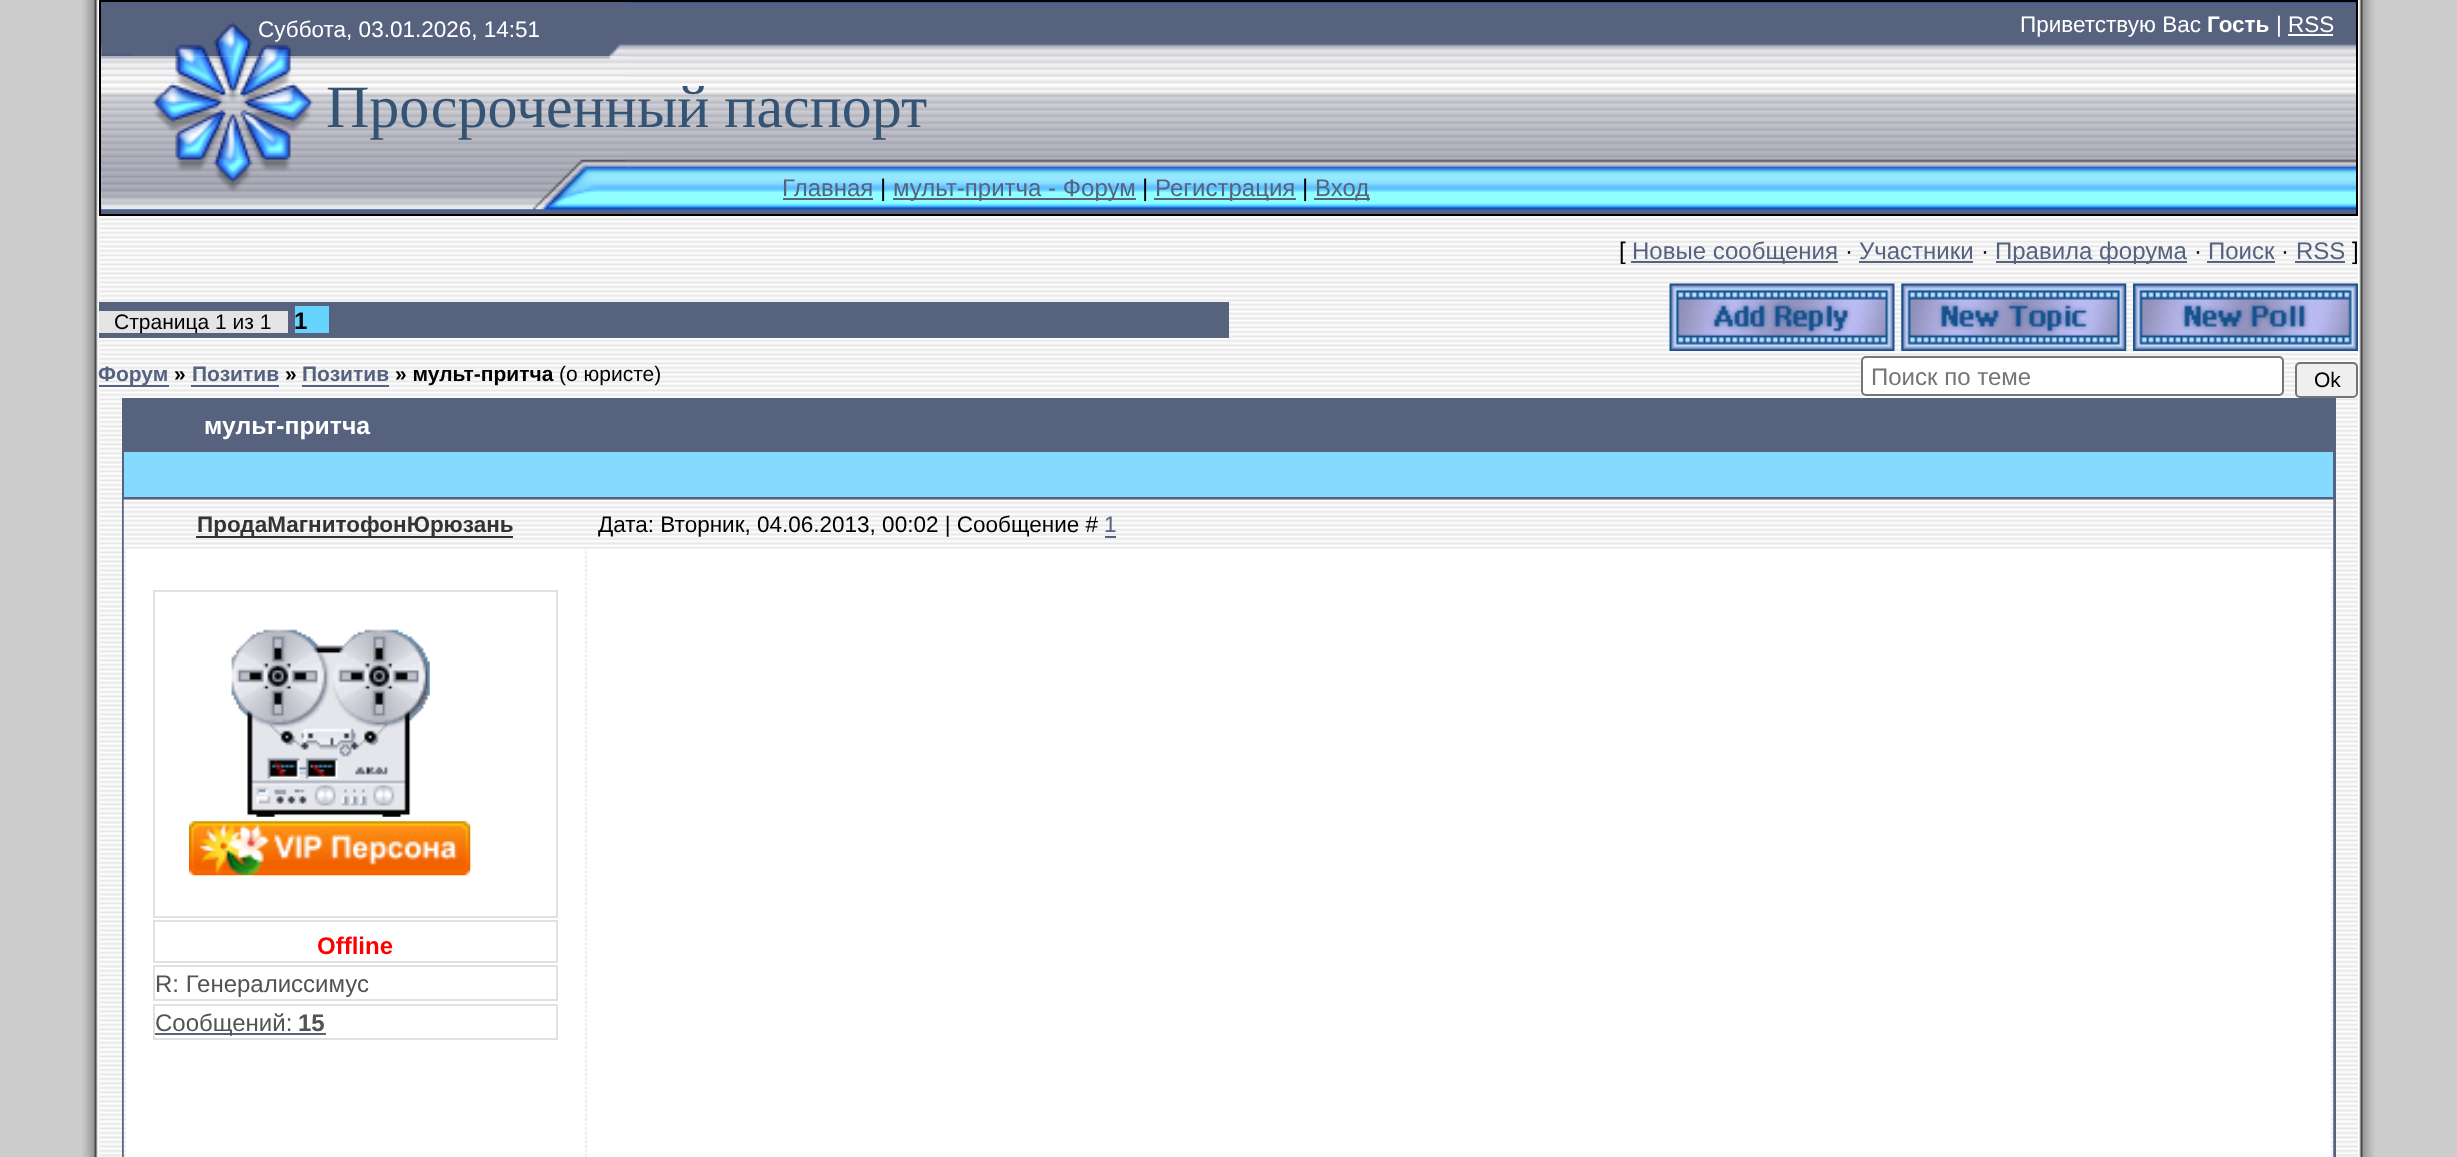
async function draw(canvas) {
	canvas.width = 2457;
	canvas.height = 1157;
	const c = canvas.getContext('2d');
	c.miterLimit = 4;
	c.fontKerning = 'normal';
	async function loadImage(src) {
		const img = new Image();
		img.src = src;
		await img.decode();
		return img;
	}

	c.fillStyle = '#ccc';
	c.fillRect(0, 0, 2457, 1157);
	c.drawImage(await loadImage('img1.png'), 82, 0, 17, 1157);
	c.drawImage(await loadImage('img2.png'), 101, 2, 2255, 212);
	c.strokeStyle = '#000';
	c.lineWidth = 2;
	c.strokeRect(100, 1, 2257, 214);
	c.drawImage(await loadImage('img3.png'), 101, 2, 525, 55);
	c.font = '22.5px Liberation Sans';
	c.fillStyle = '#fff';
	c.fillText('Суббота, 03.01.2026, 14:51', 258, 37);
	c.fillText('Приветствую Вас', 2020, 32);
	c.font = 'bold 22.5px Liberation Sans';
	c.fillText('Гость', 2207, 32);
	c.font = '22.5px Liberation Sans';
	c.fillText('| RSS', 2276, 32);
	c.fillRect(2288, 34, 45, 2);
	c.drawImage(await loadImage('img4.png'), 101, 56, 525, 104);
	c.font = '60px Liberation Serif';
	c.fillStyle = '#355473';
	c.fillText('Просроченный паспорт', 326, 127);
	c.drawImage(await loadImage('img5.png'), 101, 159, 525, 51);
	c.font = '24px Liberation Sans';
	c.fillStyle = '#57627f';
	c.fillText('Главная', 782, 196);
	c.fillRect(783, 198, 90, 2);
	c.fillStyle = '#000';
	c.fillText('|', 880, 196);
	c.fillStyle = '#57627f';
	c.fillRect(893, 198, 243, 2);
	c.fillText('мульт-притча - Форум', 893, 196);
	c.fillStyle = '#000';
	c.fillText('|', 1142, 196);
	c.fillStyle = '#57627f';
	c.fillRect(1154, 198, 142, 2);
	c.fillText('Регистрация', 1155, 196);
	c.fillStyle = '#000';
	c.fillText('|', 1302, 196);
	c.fillStyle = '#57627f';
	c.fillRect(1314, 198, 56, 2);
	c.fillText('Вход', 1315, 196);
	c.drawImage(await loadImage('img6.png'), 99, 216, 2259, 941);
	c.fillStyle = '#000';
	c.fillText('[', 1619, 259);
	c.fillStyle = '#57627f';
	c.fillRect(1631, 261, 207, 2);
	c.fillText('Новые сообщения', 1632, 259);
	c.fillStyle = '#000';
	c.fillText('·', 1845, 259);
	c.fillStyle = '#57627f';
	c.fillText('Участники', 1859, 259);
	c.fillRect(1859, 261, 114, 2);
	c.fillStyle = '#000';
	c.fillText('·', 1981, 259);
	c.fillStyle = '#57627f';
	c.fillRect(1996, 261, 191, 2);
	c.fillText('Правила форума', 1995, 259);
	c.fillStyle = '#000';
	c.fillText('·', 2194, 259);
	c.fillStyle = '#57627f';
	c.fillText('Поиск', 2208, 259);
	c.fillRect(2207, 261, 68, 2);
	c.fillStyle = '#000';
	c.fillText('·', 2281, 259);
	c.fillStyle = '#57627f';
	c.fillText('RSS', 2296, 259);
	c.fillRect(2295, 261, 50, 2);
	c.fillStyle = '#000';
	c.fillText(']', 2352, 259);
	c.fillStyle = '#57627f';
	c.fillRect(99, 302, 1130, 36);
	c.fillStyle = '#e4e4e4';
	c.fillRect(99, 311, 189, 22);
	c.font = '21px Liberation Sans';
	c.fillStyle = '#000';
	c.fillText('Страница 1 из 1', 114, 329);
	c.fillStyle = '#66d4ff';
	c.fillRect(295, 306, 34, 27);
	c.font = 'bold 24px Liberation Sans';
	c.fillStyle = '#000';
	c.fillText('1', 294, 329);
	c.drawImage(await loadImage('img7.png'), 1669, 283, 226, 68);
	c.drawImage(await loadImage('img8.png'), 1901, 283, 226, 68);
	c.drawImage(await loadImage('img9.png'), 2133, 283, 225, 68);
	c.fillStyle = '#57627f';
	c.fillRect(99, 385, 70, 2);
	c.font = 'bold 21px Liberation Sans';
	c.fillText('Форум', 98, 381);
	c.fillStyle = '#000';
	c.fillText('»', 174, 381);
	c.fillStyle = '#57627f';
	c.fillText('Позитив', 192, 381);
	c.fillRect(191, 385, 88, 2);
	c.fillStyle = '#000';
	c.fillText('»', 285, 381);
	c.fillStyle = '#57627f';
	c.fillText('Позитив', 302, 381);
	c.fillRect(302, 385, 87, 2);
	c.fillStyle = '#000';
	c.fillText('» мульт-притча', 395, 381);
	c.font = '21px Liberation Sans';
	c.fillText('(о юристе)', 559, 381);
	c.fillStyle = '#fff';
	c.beginPath();
	c.roundRect(1862, 357, 421, 38, 4);
	c.fill();
	c.strokeStyle = '#767676';
	c.stroke();
	c.font = '24px Liberation Sans';
	c.fillStyle = '#757575';
	c.fillText('Поиск по теме', 1871, 385);
	c.fillStyle = '#efefef';
	c.beginPath();
	c.roundRect(2296, 363, 61, 34, 4);
	c.fill();
	c.stroke();
	c.font = '21px Liberation Sans';
	c.fillStyle = '#000';
	c.fillText('Ok', 2314, 387);
	c.fillStyle = '#57627f';
	c.fillRect(122, 398, 2214, 759);
	c.font = 'bold 24.75px Liberation Sans';
	c.fillStyle = '#fff';
	c.fillText('мульт-притча', 204, 434);
	c.fillStyle = '#84dbff';
	c.fillRect(124, 452, 2209, 45);
	c.drawImage(await loadImage('img10.png'), 123, 499, 2211, 658);
	c.fillStyle = '#333';
	c.fillRect(196, 536, 317, 2);
	c.font = 'bold 22.5px Liberation Sans';
	c.fillText('ПродаМагнитофонЮрюзань', 197, 532);
	c.font = '22.5px Liberation Sans';
	c.fillStyle = '#000';
	c.fillText('Дата: Вторник, 04.06.2013, 00:02 | Сообщение #', 598, 532);
	c.fillStyle = '#57627f';
	c.fillText('1', 1104, 532);
	c.fillRect(1105, 536, 11, 2);
	c.fillStyle = '#fff';
	c.fillRect(126, 549, 459, 608);
	c.strokeStyle = '#e1e1e1';
	c.strokeRect(154, 591, 403, 326);
	c.drawImage(await loadImage('img11.png'), 231, 629, 199, 188);
	c.drawImage(await loadImage('img12.png'), 189, 821, 282, 55);
	c.strokeRect(154, 921, 403, 41);
	c.font = 'bold 24px Liberation Sans';
	c.fillStyle = '#f00';
	c.fillText('Offline', 317, 954);
	c.strokeRect(154, 966, 403, 34);
	c.font = '24px Liberation Sans';
	c.fillStyle = '#545353';
	c.fillText('R: Генералиссимус', 155, 992);
	c.strokeRect(154, 1005, 403, 34);
	c.fillStyle = '#57627f';
	c.fillRect(155, 1033, 171, 2);
	c.fillStyle = '#545353';
	c.fillText('Сообщений:', 155, 1031);
	c.font = 'bold 24px Liberation Sans';
	c.fillText('15', 298, 1031);
	c.fillStyle = '#fff';
	c.fillRect(587, 549, 1744, 608);
	c.drawImage(await loadImage('img13.png'), 2358, 0, 17, 1157);
}

draw(document.querySelector('canvas'));
